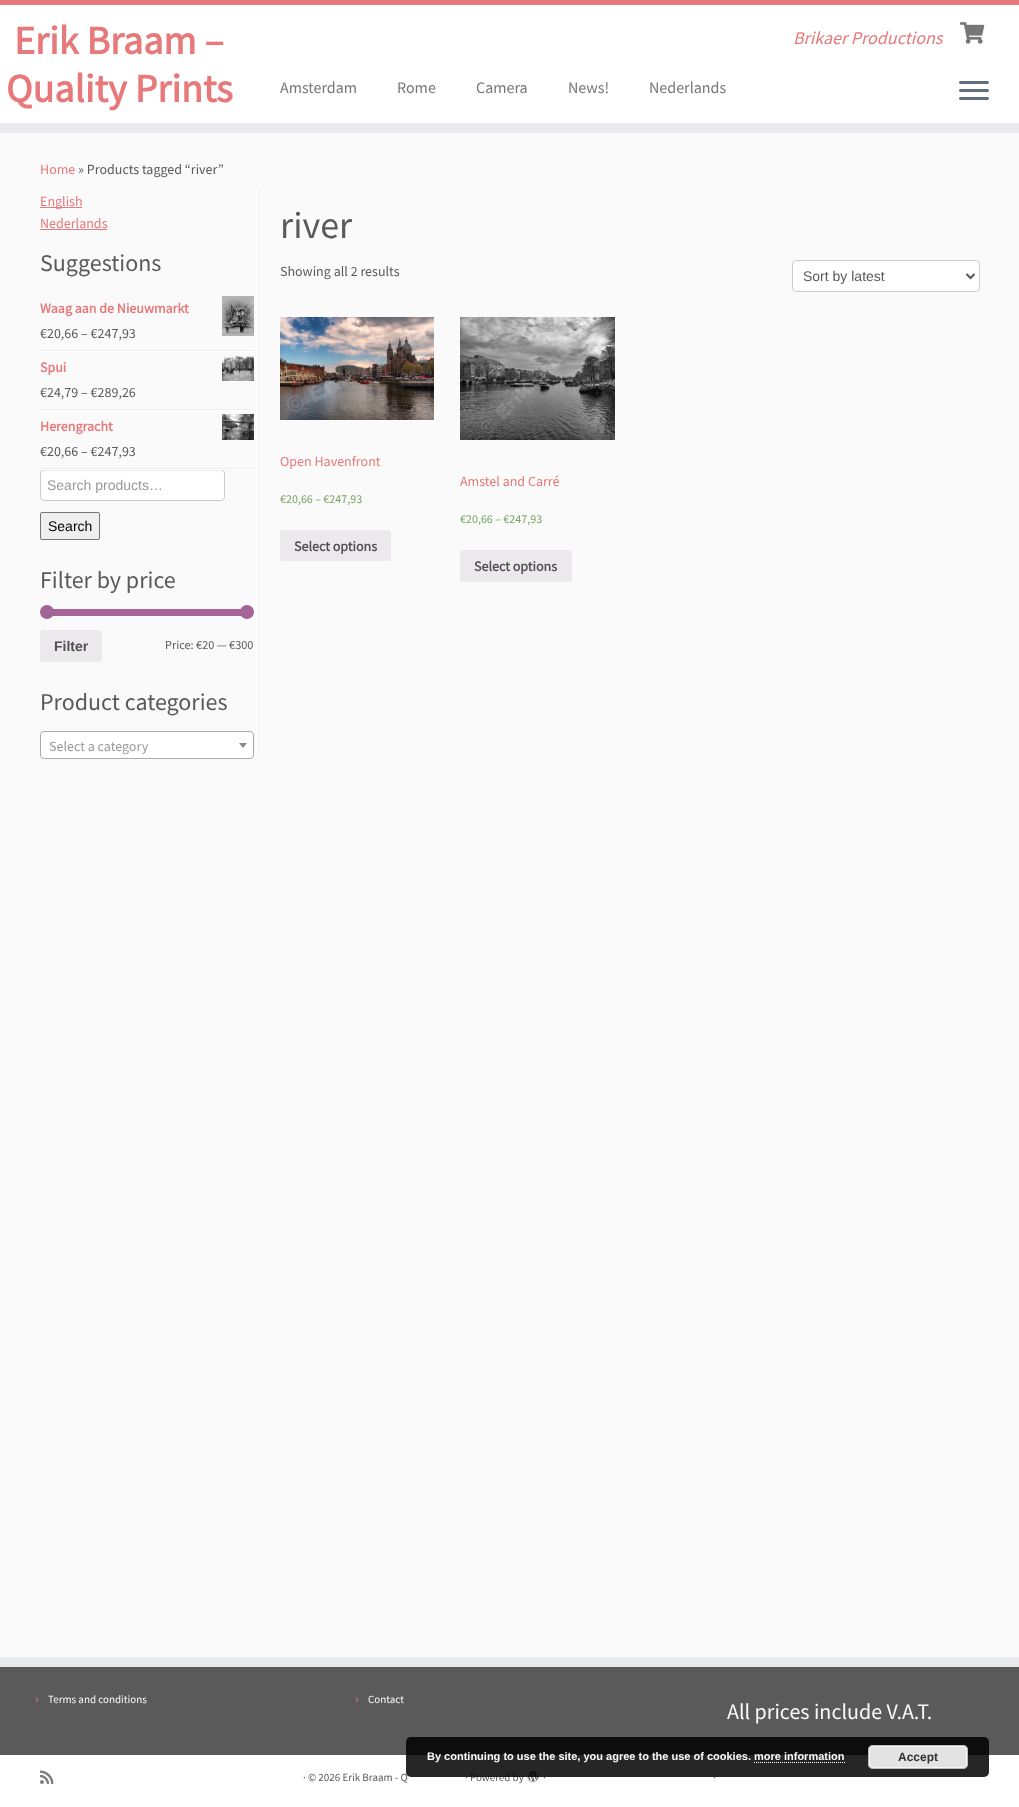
async function draw(canvas) {
	canvas.width = 1019;
	canvas.height = 1807;
	const c = canvas.getContext('2d');
	c.miterLimit = 4;
	c.fontKerning = 'normal';
	async function loadImage(src) {
		const img = new Image();
		img.src = src;
		await img.decode();
		return img;
	}

	c.fillStyle = '#fafafa';
	c.fillRect(0, 0, 1019, 1807);
	for (const [x, y, w, h, color] of [
		[0, 5, 1019, 118, '#fff'],
		[0, 0, 1019, 5, '#e7797a'],
		[0, 123, 1019, 10, '#e9eaee'],
	]) {
		c.fillStyle = color;
		c.fillRect(x, y, w, h);
	}
	c.font = 'bold 40px Source Sans Pro';
	c.fillStyle = '#e7797a';
	c.fillText('Erik Braam –', 14, 54);
	c.fillText('Quality Prints', 6, 102);
	c.font = 'italic 18px Source Sans Pro';
	c.fillText('Brikaer Productions', 793, 44);
	c.drawImage(await loadImage('img1.png'), 960, 22, 25, 22);
	c.font = '16px Source Sans Pro';
	c.fillStyle = '#777';
	for (const [text, x, y] of [
		['Amsterdam', 280, 93],
		['Rome', 397, 93],
		['Camera', 476, 93],
		['News!', 568, 93],
		['Nederlands', 649, 93],
	]) {
		c.fillText(text, x, y);
	}
	c.fillStyle = '#5f6f81';
	c.beginPath();
	c.roundRect(959, 81, 30, 3, 1.5);
	c.fill();
	c.beginPath();
	c.roundRect(959, 89, 30, 3, 1.5);
	c.fill();
	c.beginPath();
	c.roundRect(959, 97, 30, 3, 1.5);
	c.fill();
	c.font = '14px Source Sans Pro';
	c.fillStyle = '#e7797a';
	c.fillText('Home', 40, 174);
	c.fillStyle = '#5a5a5a';
	c.fillText('» Products tagged “river”', 78, 174);
	c.fillStyle = '#eee';
	c.fillRect(259, 190, 1, 565);
	c.fillStyle = '#e7797a';
	c.fillRect(40, 207, 42, 1);
	c.fillText('English', 40, 206);
	c.fillText('Nederlands', 40, 228);
	c.fillRect(40, 229, 67, 1);
	c.fillStyle = '#fff';
	c.fillRect(260, 190, 1, 565);
	c.font = '24px Source Sans Pro';
	c.fillStyle = '#5a5a5a';
	c.fillText('Suggestions', 40, 271);
	c.fillStyle = '#eee';
	c.fillRect(40, 350, 214, 1);
	c.font = 'bold 14px Source Sans Pro';
	c.fillStyle = '#e7797a';
	c.fillText('Waag aan de Nieuwmarkt', 40, 313);
	c.drawImage(await loadImage('img2.png'), 222, 296, 32, 40);
	c.font = '14px Source Sans Pro';
	c.fillStyle = '#5a5a5a';
	c.fillText('€20,66 – €247,93', 40, 338);
	c.fillStyle = '#fff';
	c.fillRect(40, 351, 214, 1);
	c.fillStyle = '#eee';
	c.fillRect(40, 409, 214, 1);
	c.font = 'bold 14px Source Sans Pro';
	c.fillStyle = '#e7797a';
	c.fillText('Spui', 40, 372);
	c.drawImage(await loadImage('img3.png'), 222, 355, 32, 26);
	c.font = '14px Source Sans Pro';
	c.fillStyle = '#5a5a5a';
	c.fillText('€24,79 – €289,26', 40, 397);
	c.fillStyle = '#fff';
	c.fillRect(40, 410, 214, 1);
	c.fillStyle = '#eee';
	c.fillRect(40, 468, 214, 1);
	c.font = 'bold 14px Source Sans Pro';
	c.fillStyle = '#e7797a';
	c.fillText('Herengracht', 40, 431);
	c.drawImage(await loadImage('img4.png'), 222, 414, 32, 26);
	c.font = '14px Source Sans Pro';
	c.fillStyle = '#5a5a5a';
	c.fillText('€20,66 – €247,93', 40, 456);
	c.fillStyle = '#fff';
	c.beginPath();
	c.roundRect(40, 469, 185, 32, 4);
	c.fill();
	c.fillStyle = '#ececec';
	c.beginPath();
	c.moveTo(44, 471);
	c.lineTo(222, 471);
	c.lineTo(223, 472);
	c.lineTo(224, 474);
	c.bezierCurveTo(224, 472, 223, 470, 221, 470);
	c.lineTo(43, 470);
	c.bezierCurveTo(41, 471, 41, 472, 41, 474);
	c.bezierCurveTo(41, 472, 42, 471, 44, 471);
	c.closePath();
	c.fill();
	c.beginPath();
	c.roundRect(40.5, 469.5, 184, 31, 3.5);
	c.strokeStyle = '#ccc';
	c.stroke();
	c.fillStyle = '#fff';
	c.fillRect(40, 469, 214, 1);
	c.font = '14px Liberation Sans';
	c.fillStyle = '#999';
	c.fillText('Search products…', 47, 490);
	c.fillStyle = '#efefef';
	c.beginPath();
	c.roundRect(40.5, 512.5, 59, 27, 1.5);
	c.fill();
	c.strokeStyle = '#767676';
	c.stroke();
	c.fillStyle = '#000';
	c.fillText('Search', 48, 531);
	c.font = '24px Source Sans Pro';
	c.fillStyle = '#5a5a5a';
	c.fillText('Filter by price', 40, 588);
	c.fillStyle = '#a46497';
	c.fillRect(47, 609, 200, 7);
	c.beginPath();
	c.arc(47, 612, 7, 0, 2 * Math.PI);
	c.fill();
	c.beginPath();
	c.arc(247, 612, 7, 0, 2 * Math.PI);
	c.fill();
	c.fillStyle = '#ebe9eb';
	c.beginPath();
	c.roundRect(40, 630, 62, 32, 3);
	c.fill();
	c.font = 'bold 14px Liberation Sans';
	c.fillStyle = '#515151';
	c.fillText('Filter', 54, 651);
	c.font = '12.25px Source Sans Pro';
	c.fillStyle = '#5a5a5a';
	c.fillText('Price: €20 — €300', 165, 649);
	c.font = '24px Source Sans Pro';
	c.fillText('Product categories', 40, 710);
	c.fillStyle = '#fff';
	c.beginPath();
	c.roundRect(40.5, 731.5, 213, 27, 3.5);
	c.fill();
	c.strokeStyle = '#aaa';
	c.stroke();
	c.font = '14px Source Sans Pro';
	c.fillStyle = '#999';
	c.fillText('Select a category', 49, 751);
	c.fillStyle = '#888';
	c.beginPath();
	c.moveTo(239, 743);
	c.lineTo(247, 743);
	c.lineTo(243, 748);
	c.closePath();
	c.fill();
	c.font = '38px Source Sans Pro';
	c.fillStyle = '#5a5a5a';
	c.fillText('river', 280, 238);
	c.font = '14px Source Sans Pro';
	c.fillText('Showing all 2 results', 280, 276);
	c.fillStyle = '#fff';
	c.beginPath();
	c.roundRect(792.5, 260.5, 187, 31, 3.5);
	c.fill();
	c.strokeStyle = '#ccc';
	c.stroke();
	c.beginPath();
	c.moveTo(966.5, 274);
	c.lineTo(970.5, 278);
	c.lineTo(974.5, 274);
	c.strokeStyle = '#555';
	c.lineWidth = 2;
	c.stroke();
	c.font = '14px Liberation Sans';
	c.fillStyle = '#5a5a5a';
	c.fillText('Sort by latest', 803, 281);
	c.drawImage(await loadImage('img5.png'), 280, 317, 154, 103);
	c.font = '14px Source Sans Pro';
	c.fillStyle = '#e7797a';
	c.fillText('Open Havenfront', 280, 466);
	c.font = '12px Source Sans Pro';
	c.fillStyle = '#77a464';
	c.fillText('€20,66 – €247,93', 280, 503);
	c.fillStyle = '#ebe9eb';
	c.beginPath();
	c.roundRect(280, 530, 111, 31, 3);
	c.fill();
	c.font = 'bold 14px Source Sans Pro';
	c.fillStyle = '#515151';
	c.fillText('Select options', 294, 551);
	c.drawImage(await loadImage('img6.png'), 460, 317, 155, 123);
	c.font = '14px Source Sans Pro';
	c.fillStyle = '#e7797a';
	c.fillText('Amstel and Carré', 460, 486);
	c.font = '12px Source Sans Pro';
	c.fillStyle = '#77a464';
	c.fillText('€20,66 – €247,93', 460, 523);
	c.fillStyle = '#ebe9eb';
	c.beginPath();
	c.roundRect(460, 550, 112, 32, 3);
	c.fill();
	c.font = 'bold 14px Source Sans Pro';
	c.fillStyle = '#515151';
	c.fillText('Select options', 474, 571);
	c.fillStyle = '#5a5a5a';
	c.fillRect(0, 1667, 1019, 88);
	c.fillStyle = '#e9eaee';
	c.fillRect(0, 1657, 1019, 10);
	c.font = '14px Source Sans Pro';
	c.fillStyle = '#e7797a';
	c.fillText('›', 35, 1703);
	c.font = '11px Source Sans Pro';
	c.fillStyle = '#fafafa';
	c.fillText('Terms and conditions', 48, 1703);
	c.font = '14px Source Sans Pro';
	c.fillStyle = '#e7797a';
	c.fillText('›', 355, 1703);
	c.font = '11px Source Sans Pro';
	c.fillStyle = '#fafafa';
	c.fillText('Contact', 368, 1703);
	c.font = '22px Source Sans Pro';
	c.fillText('All prices include V.A.T.', 727, 1719);
	c.fillStyle = '#fff';
	c.fillRect(0, 1755, 1019, 52);
	c.drawImage(await loadImage('img7.png'), 40, 1770, 14, 14);
	c.font = '11px Source Sans Pro';
	c.fillStyle = '#5a5a5a';
	c.fillText('· © 2026 Erik Braam - Q', 303, 1781);
	c.fillText('· Powered by', 465, 1781);
	c.drawImage(await loadImage('img8.png'), 527, 1770, 12, 13);
	c.fillText('·', 543, 1781);
	c.fillText('·', 713, 1781);
	c.fillStyle = '#000000d9';
	c.beginPath();
	c.roundRect(406, 1737, 583, 40, 5);
	c.fill();
	c.font = 'bold 11px Liberation Sans';
	c.fillStyle = '#fafafa';
	c.fillText('By continuing to use the site, you agree to the use of cookies. more information', 427, 1760);
	c.fillStyle = '#e3e3e3';
	c.beginPath();
	c.roundRect(868, 1745, 100, 24, 5);
	c.fill();
	c.beginPath();
	c.roundRect(869.5, 1746.5, 97, 21, 3.5);
	c.strokeStyle = '#f6f6f6';
	c.lineWidth = 1;
	c.stroke();
	c.beginPath();
	c.roundRect(868.5, 1745.5, 99, 23, 4.5);
	c.strokeStyle = '#bbb';
	c.stroke();
	c.font = 'bold 12px Liberation Sans';
	c.fillStyle = '#333';
	c.fillText('Accept', 898, 1761);
	c.beginPath();
	c.moveTo(754, 1762.5);
	c.lineTo(845, 1762.5);
	c.strokeStyle = '#fff';
	c.setLineDash([1, 1]);
	c.stroke();
}

draw(document.querySelector('canvas'));
